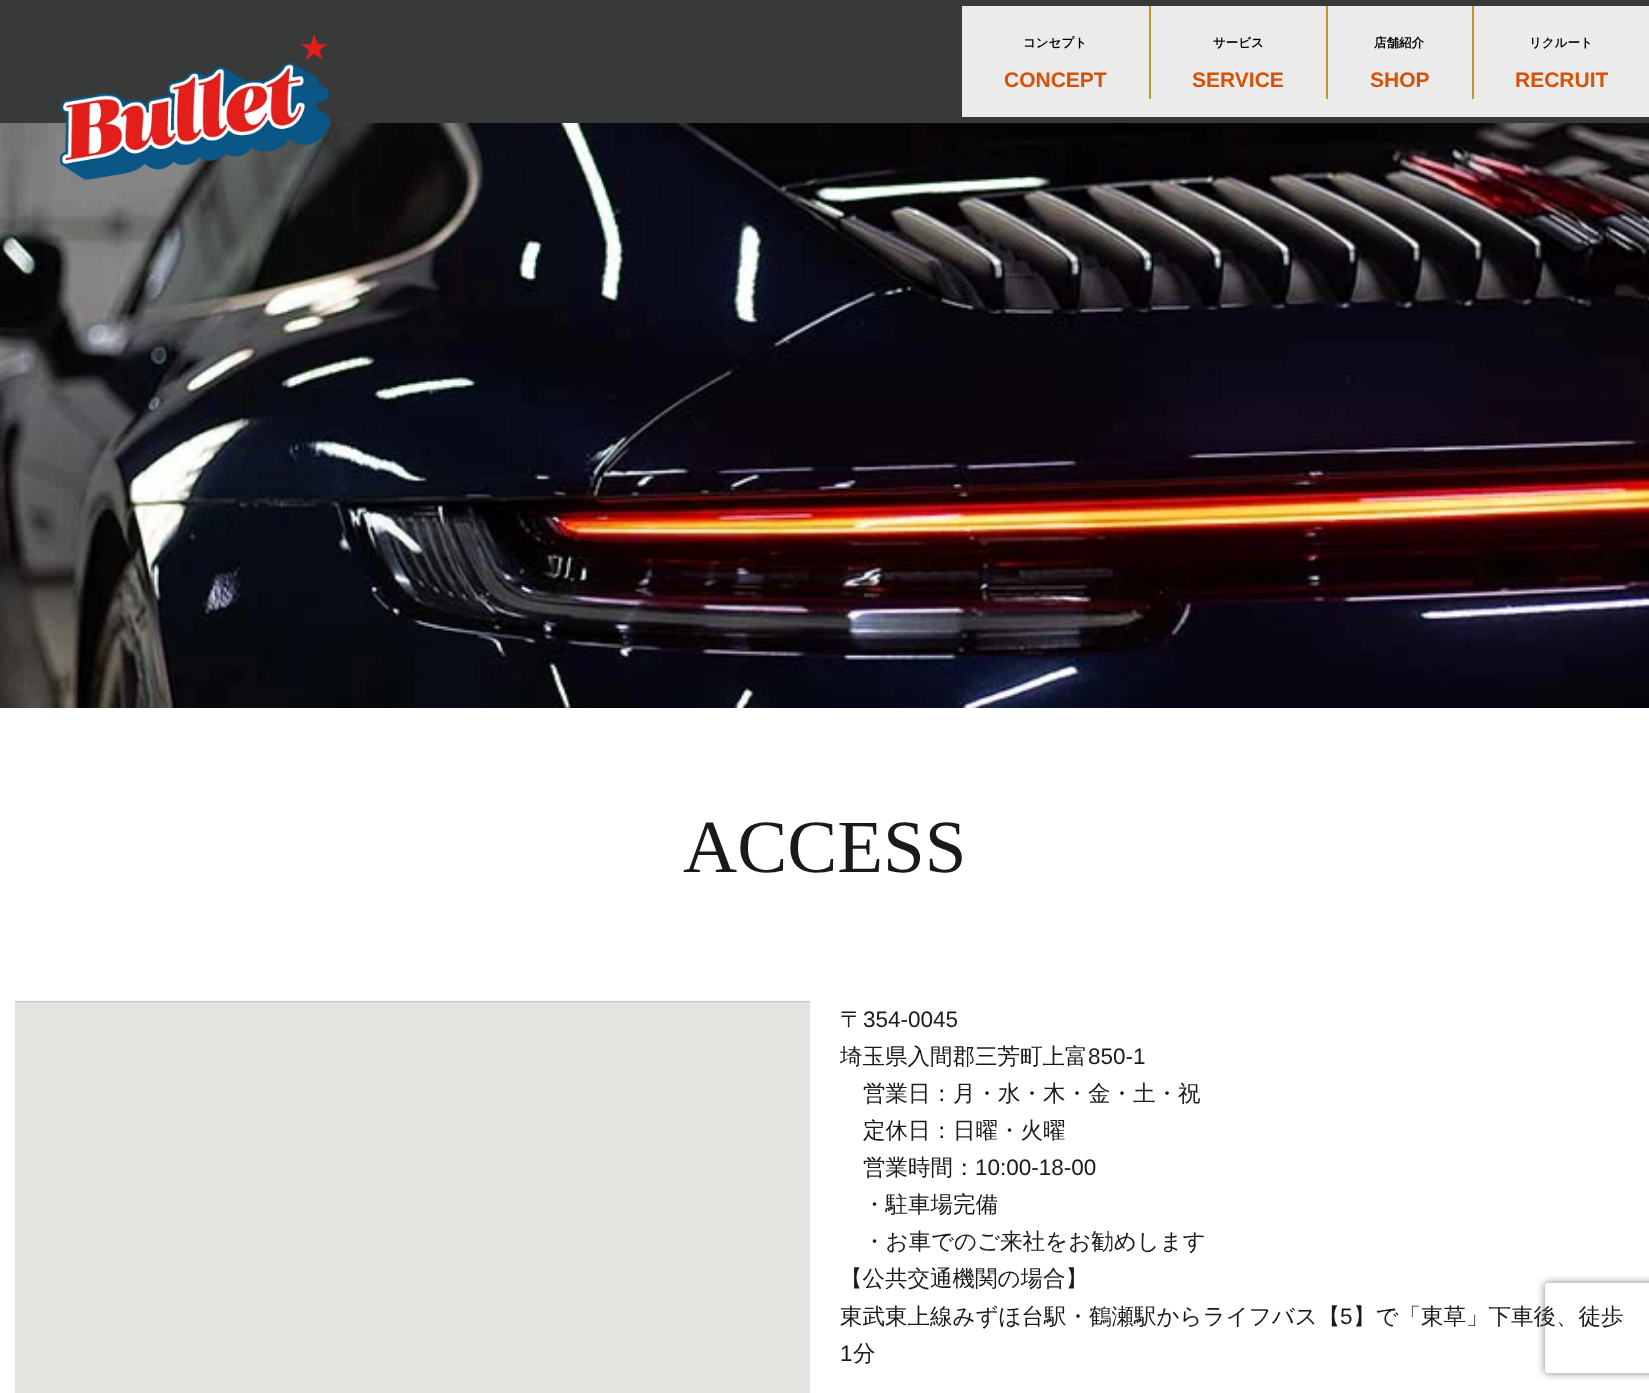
async function draw(canvas) {
	canvas.width = 1649;
	canvas.height = 1393;
	const c = canvas.getContext('2d');
	c.miterLimit = 4;
	c.fontKerning = 'normal';
	async function loadImage(src) {
		const img = new Image();
		img.src = src;
		await img.decode();
		return img;
	}

	c.fillStyle = '#fff';
	c.fillRect(0, 0, 1649, 1393);
	c.fillStyle = '#383a39';
	c.fillRect(0, 0, 1649, 123);
	c.drawImage(await loadImage('img2.png'), 0, 123, 1649, 585);
	c.drawImage(await loadImage('img1.png'), 60, 34, 270, 146);
	c.fillStyle = '#ebebeb';
	c.fillRect(962, 6, 687, 111);
	c.fillStyle = '#bf992e';
	c.fillRect(1149, 6, 2, 93);
	c.font = 'bold 12.5px WenQuanYi Zen Hei';
	c.fillStyle = '#000';
	c.fillText('コンセプト', 1023, 47);
	c.font = 'bold 21px Liberation Sans';
	c.fillStyle = '#d75205';
	c.fillText('CONCEPT', 1004, 87);
	c.fillStyle = '#bf992e';
	c.fillRect(1326, 6, 2, 93);
	c.font = 'bold 12.5px WenQuanYi Zen Hei';
	c.fillStyle = '#000';
	c.fillText('サービス', 1213, 47);
	c.font = 'bold 21px Liberation Sans';
	c.fillStyle = '#d75205';
	c.fillText('SERVICE', 1192, 87);
	c.fillStyle = '#bf992e';
	c.fillRect(1472, 6, 2, 93);
	c.font = 'bold 12.5px WenQuanYi Zen Hei';
	c.fillStyle = '#000';
	c.fillText('店舗紹介', 1374, 47);
	c.font = 'bold 21px Liberation Sans';
	c.fillStyle = '#d75205';
	c.fillText('SHOP', 1370, 87);
	c.font = 'bold 12.5px WenQuanYi Zen Hei';
	c.fillStyle = '#000';
	c.fillText('リクルート', 1529, 47);
	c.font = 'bold 21px Liberation Sans';
	c.fillStyle = '#d75205';
	c.fillText('RECRUIT', 1515, 87);
	c.font = '75px Liberation Serif';
	c.fillStyle = '#1a1a1a';
	c.fillText('ACCESS', 683, 872);
	c.drawImage(await loadImage('img3.png'), 15, 1000, 795, 393);
	c.font = '500 22.5px WenQuanYi Zen Hei';
	c.fillText('〒', 840, 1027);
	c.font = '22.5px Liberation Sans';
	c.fillText('354-0045', 863, 1027);
	c.font = '500 22.5px WenQuanYi Zen Hei';
	c.fillText('埼玉県入間郡三芳町上富', 840, 1064);
	c.font = '22.5px Liberation Sans';
	c.fillText('850-1', 1088, 1064);
	c.font = '500 22.5px WenQuanYi Zen Hei';
	for (const [text, x, y] of [
		['営業日：月・水・木・金・土・祝', 863, 1101],
		['定休日：日曜・火曜', 863, 1138],
		['営業時間：', 863, 1175],
	]) {
		c.fillText(text, x, y);
	}
	c.font = '22.5px Liberation Sans';
	c.fillText('10:00-18-00', 975, 1175);
	c.font = '500 22.5px WenQuanYi Zen Hei';
	for (const [text, x, y] of [
		['・駐車場完備', 863, 1212],
		['・お車でのご来社をお勧めします', 863, 1249],
		['【公共交通機関の場合】', 840, 1286],
		['東武東上線みずほ台駅・鶴瀬駅からライフバス【', 840, 1324],
	]) {
		c.fillText(text, x, y);
	}
	c.font = '22.5px Liberation Sans';
	c.fillText('5', 1340, 1324);
	c.font = '500 22.5px WenQuanYi Zen Hei';
	c.fillText('】で「東草」下車後、徒歩', 1353, 1324);
	c.font = '22.5px Liberation Sans';
	c.fillText('1', 840, 1361);
	c.font = '500 22.5px WenQuanYi Zen Hei';
	c.fillText('分', 853, 1361);
	c.save();
	c.beginPath();
	c.moveTo(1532, 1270);
	c.lineTo(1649, 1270);
	c.lineTo(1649, 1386);
	c.lineTo(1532, 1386);
	c.closePath();
	c.moveTo(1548, 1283);
	c.lineTo(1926, 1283);
	c.bezierCurveTo(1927.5, 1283, 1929, 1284.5, 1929, 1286);
	c.lineTo(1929, 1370);
	c.bezierCurveTo(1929, 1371.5, 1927.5, 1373, 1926, 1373);
	c.lineTo(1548, 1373);
	c.bezierCurveTo(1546.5, 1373, 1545, 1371.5, 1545, 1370);
	c.lineTo(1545, 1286);
	c.bezierCurveTo(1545, 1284.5, 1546.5, 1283, 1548, 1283);
	c.closePath();
	c.clip('evenodd');
	c.fillStyle = '#808080';
	c.filter = 'blur(4px)';
	c.beginPath();
	c.roundRect(1545, 1283, 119, 90, 3);
	c.fill();
	c.filter = 'none';
	c.restore();
}

draw(document.querySelector('canvas'));
